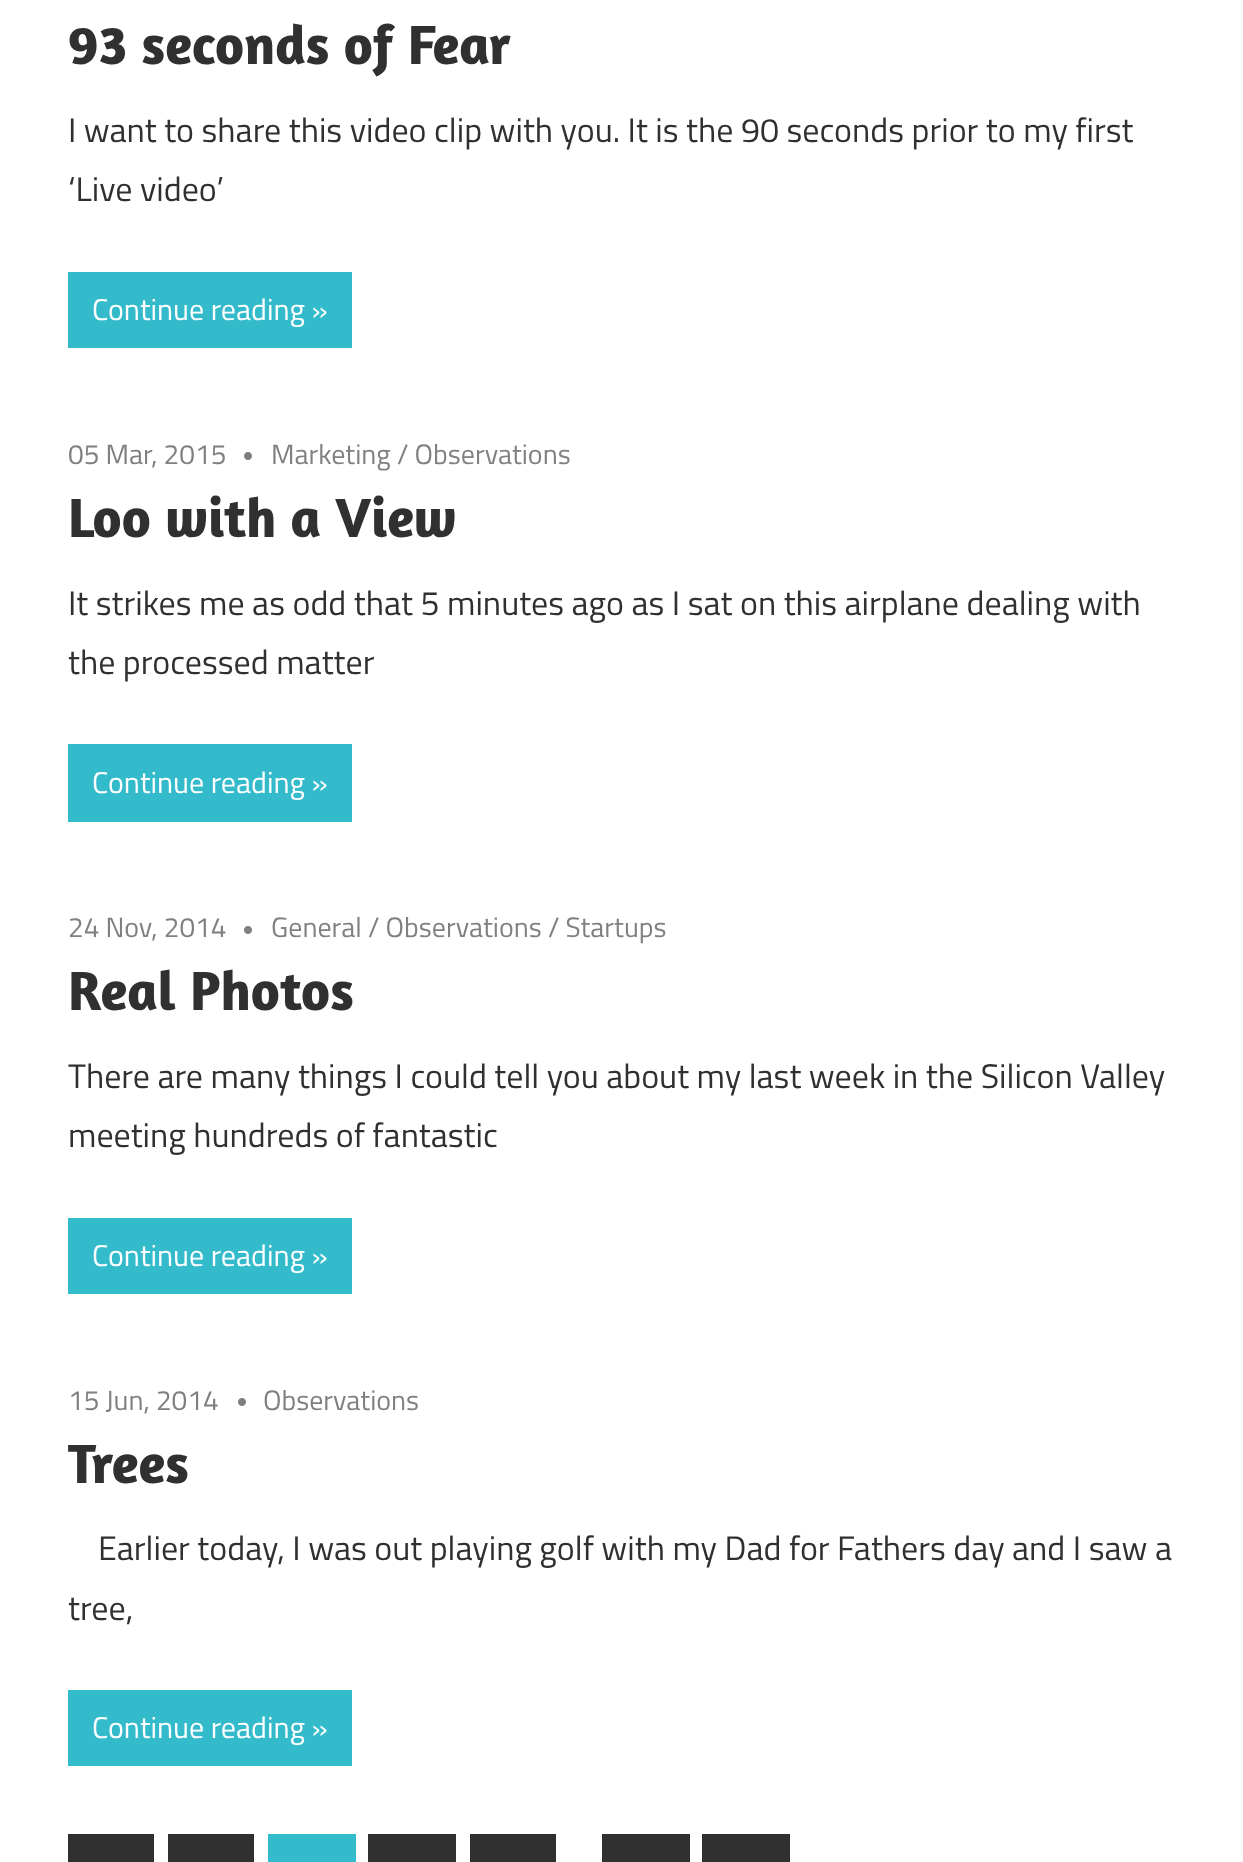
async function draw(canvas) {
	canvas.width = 1243;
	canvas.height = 1862;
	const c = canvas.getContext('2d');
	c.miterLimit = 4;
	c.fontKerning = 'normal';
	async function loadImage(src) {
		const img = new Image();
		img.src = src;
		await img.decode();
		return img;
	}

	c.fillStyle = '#fff';
	c.fillRect(0, 0, 1243, 1862);
	c.font = 'bold 56px Amaranth';
	c.fillStyle = '#303030';
	c.fillText('93 seconds of Fear', 68, 64);
	c.font = '34px Titillium Web';
	c.fillText('I want to share this video clip with you. It is the 90 seconds prior to my first', 68, 142);
	c.fillText('‘Live video’', 68, 201);
	c.fillStyle = '#3bc';
	c.fillRect(68, 272, 284, 76);
	c.font = '30px Titillium Web';
	c.fillStyle = '#fff';
	c.fillText('Continue reading »', 92, 320);
	c.font = '28px Titillium Web';
	c.fillStyle = '#808080';
	c.fillText('05 Mar, 2015', 68, 464);
	c.drawImage(await loadImage('img1.png'), 244, 452, 8, 8);
	c.fillText('Marketing / Observations', 271, 464);
	c.font = 'bold 56px Amaranth';
	c.fillStyle = '#303030';
	c.fillText('Loo with a View', 68, 537);
	c.font = '34px Titillium Web';
	c.fillText('It strikes me as odd that 5 minutes ago as I sat on this airplane dealing with', 68, 615);
	c.fillText('the processed matter', 68, 674);
	c.fillStyle = '#3bc';
	c.fillRect(68, 744, 284, 78);
	c.font = '30px Titillium Web';
	c.fillStyle = '#fff';
	c.fillText('Continue reading »', 92, 793);
	c.font = '28px Titillium Web';
	c.fillStyle = '#808080';
	c.fillText('24 Nov, 2014', 68, 937);
	c.drawImage(await loadImage('img1.png'), 244, 926, 8, 8);
	c.fillText('General / Observations / Startups', 271, 937);
	c.font = 'bold 56px Amaranth';
	c.fillStyle = '#303030';
	c.fillText('Real Photos', 68, 1010);
	c.font = '34px Titillium Web';
	c.fillText('There are many things I could tell you about my last week in the Silicon Valley', 68, 1088);
	c.fillText('meeting hundreds of fantastic', 68, 1147);
	c.fillStyle = '#3bc';
	c.fillRect(68, 1218, 284, 76);
	c.font = '30px Titillium Web';
	c.fillStyle = '#fff';
	c.fillText('Continue reading »', 92, 1266);
	c.font = '28px Titillium Web';
	c.fillStyle = '#808080';
	c.fillText('15 Jun, 2014', 68, 1410);
	c.drawImage(await loadImage('img1.png'), 238, 1398, 8, 8);
	c.fillText('Observations', 263, 1410);
	c.font = 'bold 56px Amaranth';
	c.fillStyle = '#303030';
	c.fillText('Trees', 68, 1483);
	c.font = '34px Titillium Web';
	c.fillText('Earlier today, I was out playing golf with my Dad for Fathers day and I saw a', 98, 1560);
	c.fillText('tree,', 68, 1620);
	c.fillStyle = '#3bc';
	c.fillRect(68, 1690, 284, 76);
	c.font = '30px Titillium Web';
	c.fillStyle = '#fff';
	c.fillText('Continue reading »', 92, 1738);
	for (const [x, y, w, h, color] of [
		[68, 1834, 86, 28, '#303030'],
		[168, 1834, 86, 28, '#303030'],
		[268, 1834, 88, 28, '#3bc'],
		[368, 1834, 88, 28, '#303030'],
		[470, 1834, 86, 28, '#303030'],
		[602, 1834, 88, 28, '#303030'],
		[702, 1834, 88, 28, '#303030'],
	]) {
		c.fillStyle = color;
		c.fillRect(x, y, w, h);
	}
}

draw(document.querySelector('canvas'));
